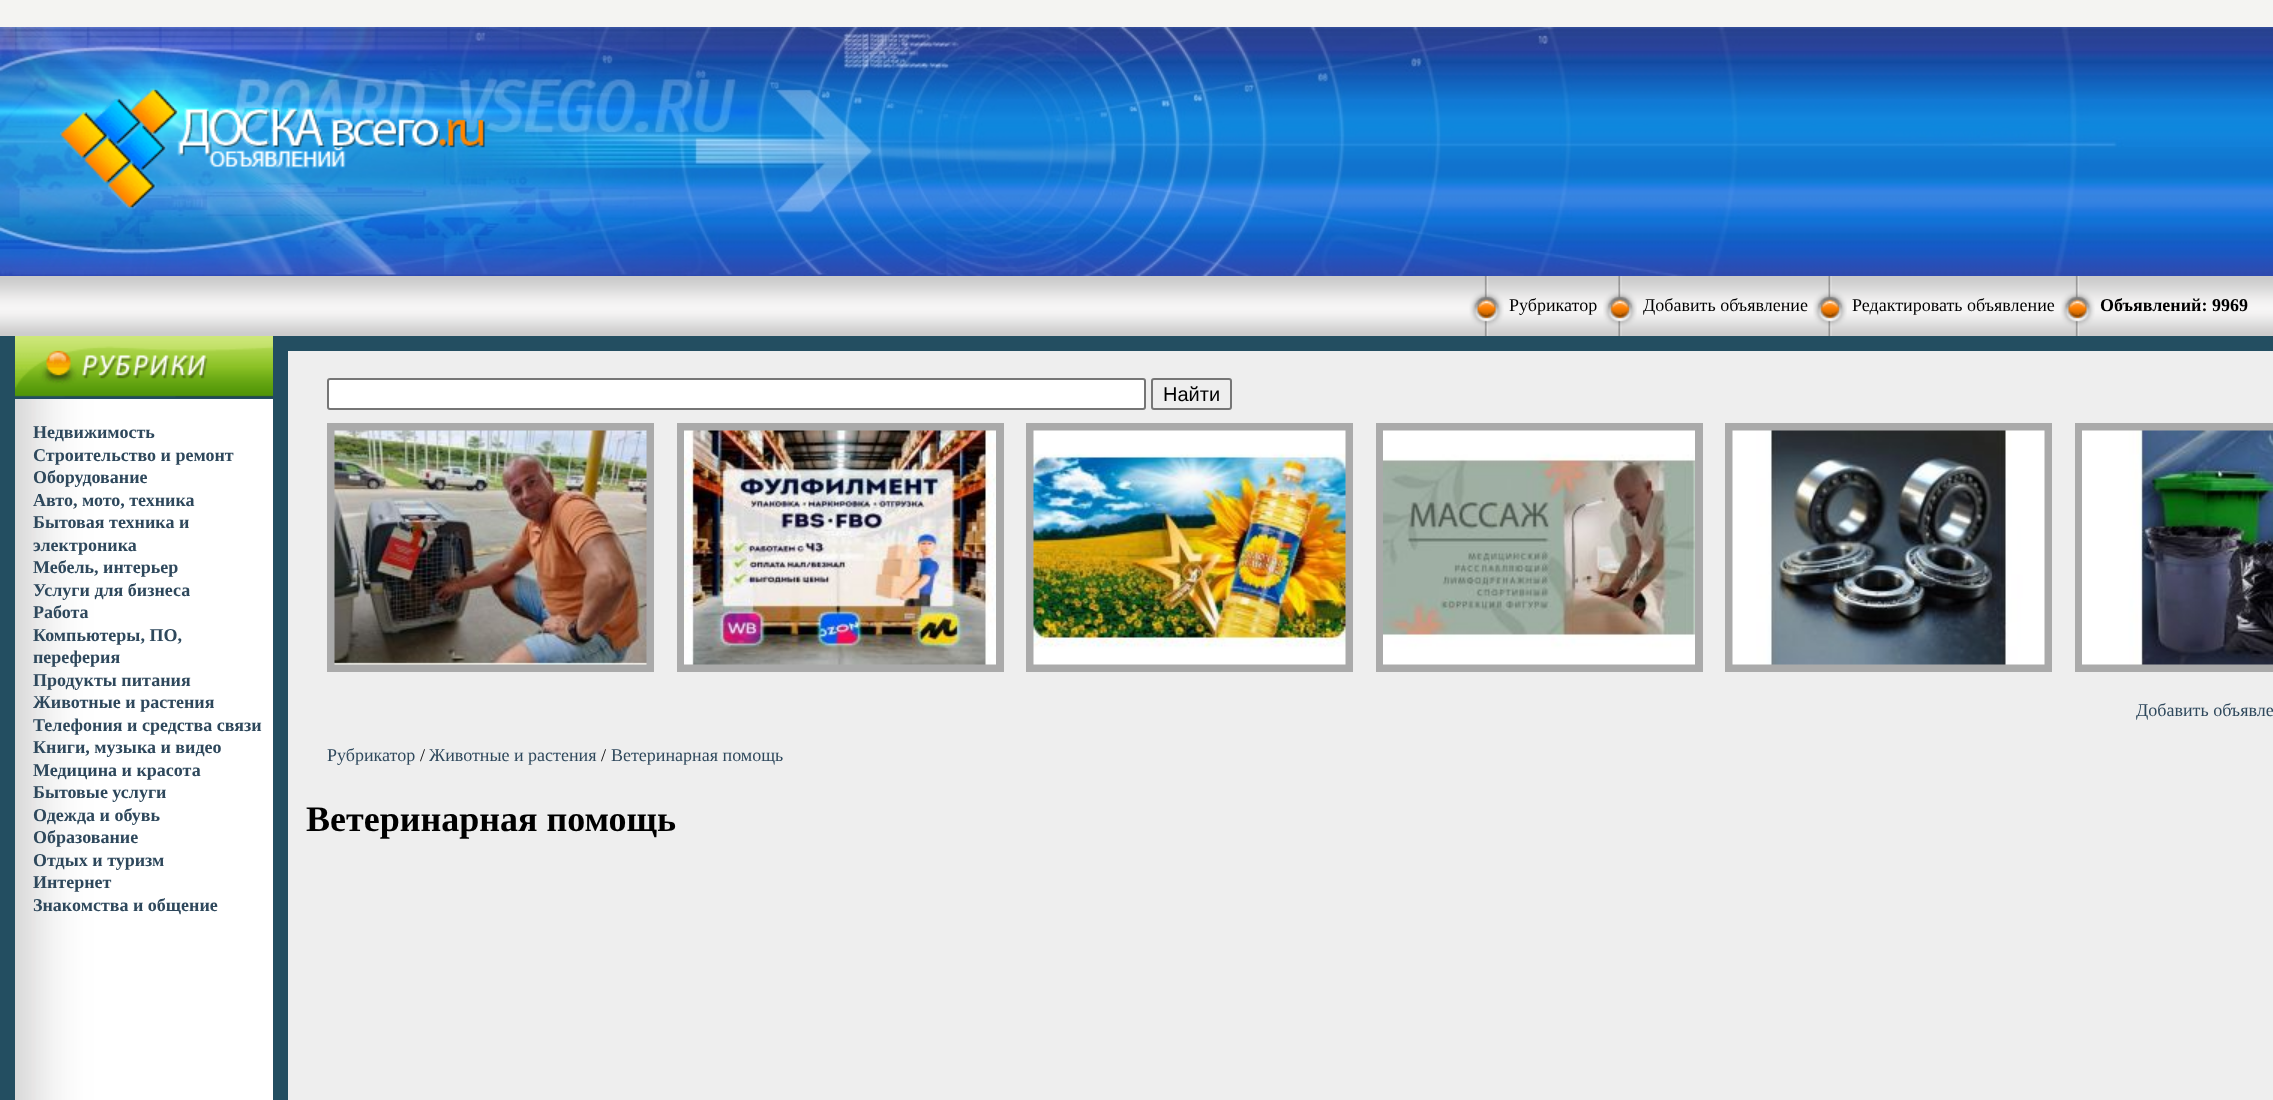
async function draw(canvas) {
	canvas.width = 2273;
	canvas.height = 1100;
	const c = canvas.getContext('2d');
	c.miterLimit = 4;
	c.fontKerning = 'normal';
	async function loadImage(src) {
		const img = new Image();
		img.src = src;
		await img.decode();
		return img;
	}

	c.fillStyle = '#f4f4f2';
	c.fillRect(0, 0, 2273, 1100);
	c.drawImage(await loadImage('img1.png'), 0, 27, 2273, 249);
	c.drawImage(await loadImage('img2.png'), 59, 88, 426, 121);
	c.drawImage(await loadImage('img3.png'), 0, 276, 2273, 60);
	c.drawImage(await loadImage('img4.png'), 1469, 276, 35, 60);
	c.font = '18px Liberation Serif';
	c.fillStyle = '#000';
	c.fillText('Рубрикатор', 1509, 311);
	c.drawImage(await loadImage('img5.png'), 1603, 276, 34, 60);
	c.fillText('Добавить объявление', 1643, 311);
	c.drawImage(await loadImage('img6.png'), 1813, 276, 34, 60);
	c.fillText('Редактировать объявление', 1852, 311);
	c.drawImage(await loadImage('img7.png'), 2060, 276, 35, 60);
	c.font = 'bold 18px Liberation Serif';
	c.fillText('Объявлений: 9969', 2100, 311);
	c.fillStyle = '#234e61';
	c.fillRect(0, 336, 2273, 764);
	c.drawImage(await loadImage('img8.png'), 15, 336, 258, 62);
	c.drawImage(await loadImage('img9.png'), 15, 399, 258, 701);
	c.fillStyle = '#2e485c';
	for (const [text, x, y] of [
		['Недвижимость', 33, 438],
		['Строительство и ремонт', 33, 461],
		['Оборудование', 33, 483],
		['Авто, мото, техника', 33, 506],
		['Бытовая техника и', 33, 528],
		['электроника', 33, 551],
		['Мебель, интерьер', 33, 573],
		['Услуги для бизнеса', 33, 596],
		['Работа', 33, 618],
		['Компьютеры, ПО,', 33, 641],
		['переферия', 33, 663],
		['Продукты питания', 33, 686],
		['Животные и растения', 33, 708],
		['Телефония и средства связи', 33, 731],
		['Книги, музыка и видео', 33, 753],
		['Медицина и красота', 33, 776],
		['Бытовые услуги', 33, 798],
		['Одежда и обувь', 33, 821],
		['Образование', 33, 843],
		['Отдых и туризм', 33, 866],
		['Интернет', 33, 888],
		['Знакомства и общение', 33, 911],
	]) {
		c.fillText(text, x, y);
	}
	c.fillStyle = '#eee';
	c.fillRect(288, 351, 1985, 749);
	c.fillStyle = '#fff';
	c.beginPath();
	c.roundRect(328, 379, 817, 30, 2);
	c.fill();
	c.strokeStyle = '#767676';
	c.lineWidth = 2;
	c.stroke();
	c.beginPath();
	c.roundRect(1152, 379, 79, 30, 2);
	c.stroke();
	c.font = '20px Liberation Sans';
	c.fillStyle = '#000';
	c.fillText('Найти', 1163, 401);
	c.strokeStyle = '#aaa';
	c.lineWidth = 8;
	c.strokeRect(331, 427, 319, 241);
	c.drawImage(await loadImage('img10.png'), 334, 430, 313, 235);
	c.strokeRect(681, 427, 319, 241);
	c.drawImage(await loadImage('img11.png'), 684, 430, 312, 235);
	c.strokeRect(1030, 427, 319, 241);
	c.drawImage(await loadImage('img12.png'), 1033, 430, 313, 235);
	c.strokeRect(1380, 427, 319, 241);
	c.drawImage(await loadImage('img13.png'), 1383, 430, 312, 235);
	c.strokeRect(1729, 427, 319, 241);
	c.drawImage(await loadImage('img14.png'), 1732, 430, 313, 235);
	c.strokeRect(2079, 427, 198, 241);
	c.drawImage(await loadImage('img15.png'), 2082, 430, 191, 235);
	c.font = '18px Liberation Serif';
	c.fillStyle = '#2e485c';
	c.fillText('Добавить объявле', 2136, 716);
	c.fillText('Рубрикатор', 327, 761);
	c.fillStyle = '#000';
	c.fillText('/', 420, 761);
	c.fillStyle = '#2e485c';
	c.fillText('Животные и растения', 429, 761);
	c.fillStyle = '#000';
	c.fillText('/', 601, 761);
	c.fillStyle = '#2e485c';
	c.fillText('Ветеринарная помощь', 611, 761);
	c.font = 'bold 36px Liberation Serif';
	c.fillStyle = '#000';
	c.fillText('Ветеринарная помощь', 306, 831);
}

draw(document.querySelector('canvas'));
